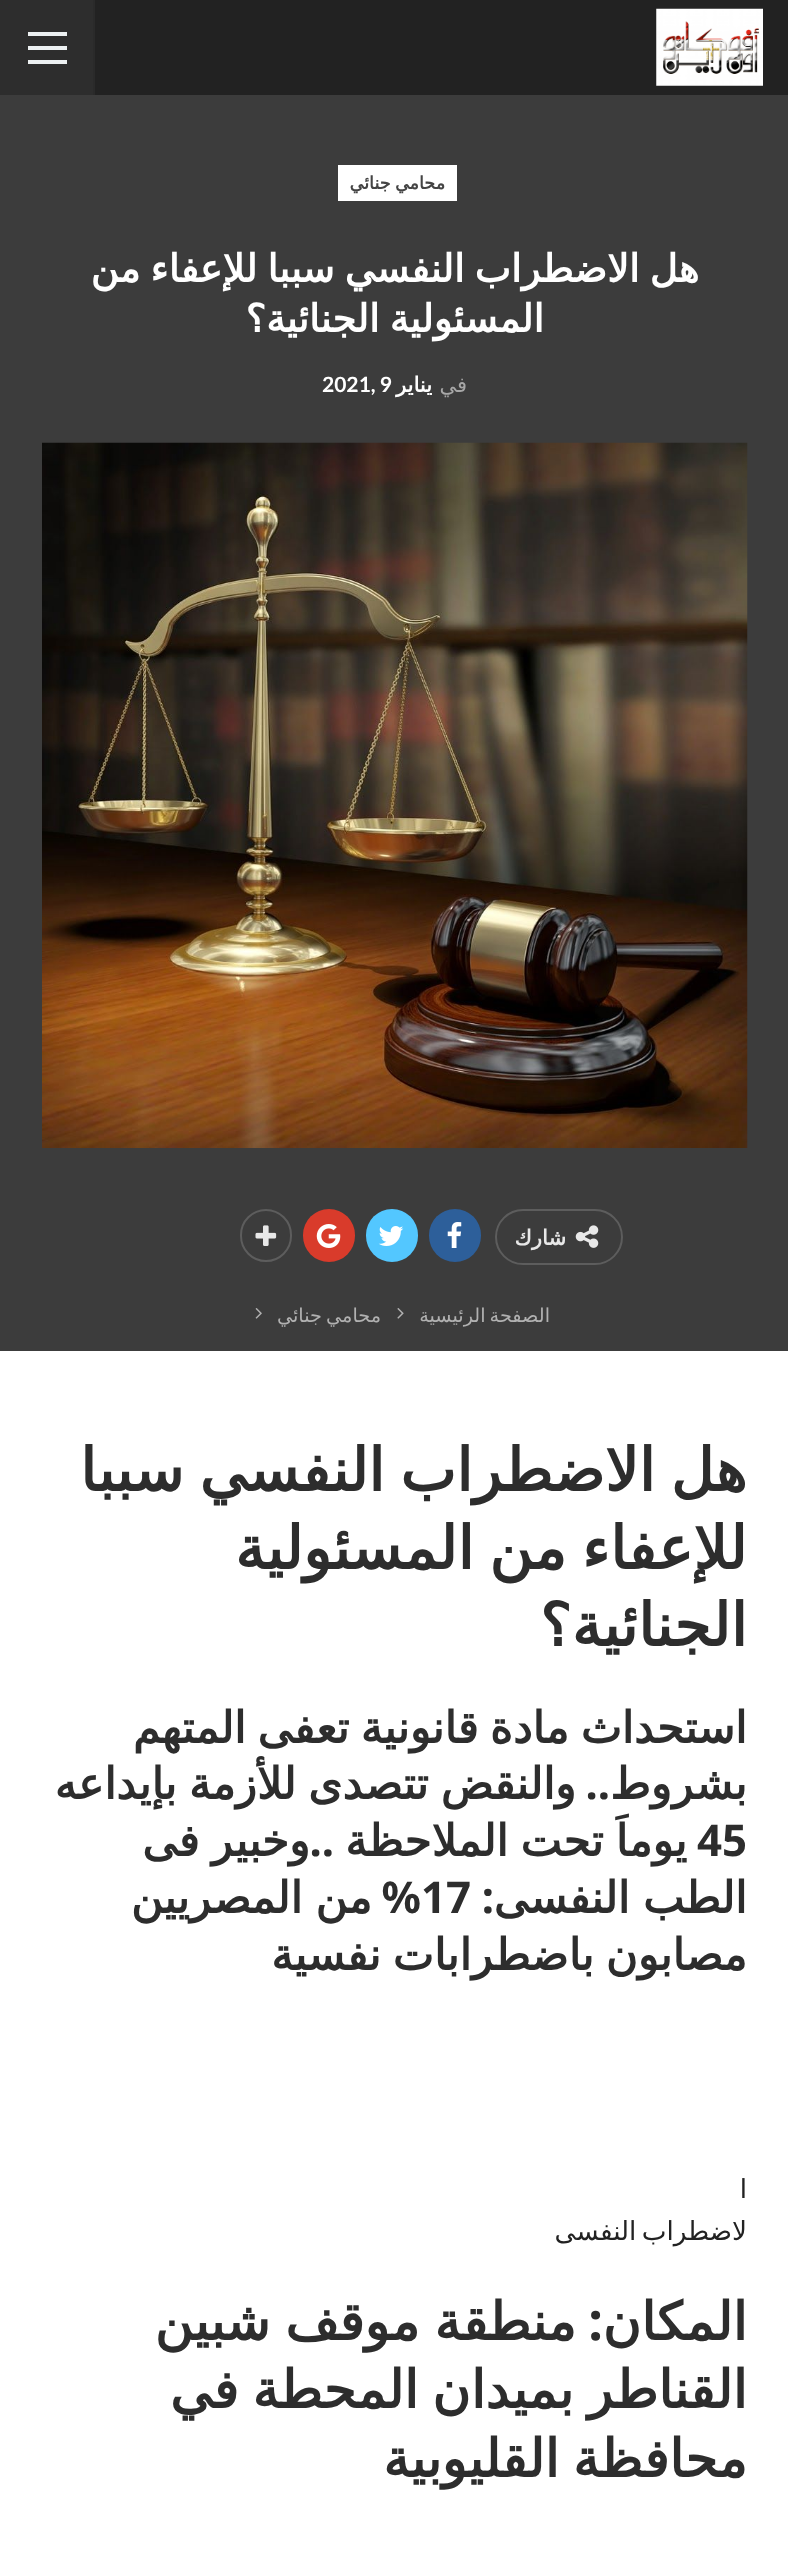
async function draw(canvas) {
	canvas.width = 788;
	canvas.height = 2568;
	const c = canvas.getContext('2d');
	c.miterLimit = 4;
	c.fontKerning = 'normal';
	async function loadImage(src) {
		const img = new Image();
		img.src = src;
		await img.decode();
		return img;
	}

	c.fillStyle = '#fff';
	c.fillRect(0, 0, 788, 2568);
	c.fillStyle = '#222';
	c.fillRect(95, 0, 693, 95);
	c.drawImage(await loadImage('img1.png'), 656, 8, 107, 78);
	for (const [x, y, w, h, color] of [
		[0, 0, 93, 95, '#2d2d2d'],
		[93, 0, 2, 95, '#2a2a2a'],
		[28, 46, 39, 4, '#ecf0f1'],
		[28, 32, 39, 4, '#ecf0f1'],
		[28, 60, 39, 4, '#ecf0f1'],
		[0, 95, 788, 1256, '#3c3c3c'],
		[338, 165, 119, 36, '#fff'],
	]) {
		c.fillStyle = color;
		c.fillRect(x, y, w, h);
	}
	c.wordSpacing = '-1px';
	c.direction = 'rtl';
	c.font = 'bold 17.5px DejaVu Sans';
	c.fillStyle = '#444';
	c.fillText('محامي جنائي', 445, 189);
	c.wordSpacing = '-2.25px';
	c.font = 'bold 38.5px DejaVu Sans';
	c.fillStyle = '#fff';
	c.fillText('هل الاضطراب النفسي سببا للإعفاء من', 699, 282);
	c.fillText('المسئولية الجنائية؟', 544, 332);
	c.wordSpacing = '0px';
	c.font = '21px DejaVu Sans';
	c.fillStyle = '#a7a7a7';
	c.fillText('في', 467, 392);
	c.font = 'bold 21px DejaVu Sans';
	c.fillStyle = '#fff';
	c.fillText('يناير', 432, 392);
	c.direction = 'ltr';
	c.font = 'bold 21px Lato';
	c.fillText('2021, 9', 322, 392);
	c.drawImage(await loadImage('img2.png'), 42, 442, 706, 706);
	c.beginPath();
	c.roundRect(496, 1210, 126, 54, 27);
	c.strokeStyle = '#5d5d5d';
	c.lineWidth = 2;
	c.stroke();
	c.drawImage(await loadImage('img3.png'), 575, 1225, 24, 23);
	c.direction = 'rtl';
	c.font = 'bold 21px DejaVu Sans';
	c.fillStyle = '#e8e8e8';
	c.fillText('شارك', 566, 1245);
	c.fillStyle = '#2d5f9a';
	c.beginPath();
	c.roundRect(429, 1209, 52, 53, 26);
	c.fill();
	c.drawImage(await loadImage('img4.png'), 447, 1222, 15, 26);
	c.fillStyle = '#53c7ff';
	c.beginPath();
	c.roundRect(366, 1209, 52, 53, 26);
	c.fill();
	c.drawImage(await loadImage('img5.png'), 378, 1226, 26, 20);
	c.fillStyle = '#d93b2b';
	c.beginPath();
	c.roundRect(303, 1209, 52, 53, 26);
	c.fill();
	c.drawImage(await loadImage('img6.png'), 316, 1224, 25, 24);
	c.beginPath();
	c.roundRect(241, 1210, 50, 51, 25);
	c.stroke();
	c.drawImage(await loadImage('img7.png'), 255, 1225, 22, 21);
	c.wordSpacing = '-2px';
	c.font = '19.25px DejaVu Sans';
	c.fillStyle = '#b1b1b1';
	c.fillText('الصفحة الرئيسية', 550, 1322);
	c.drawImage(await loadImage('img8.png'), 397, 1308, 7, 11);
	c.fillText('محامي جنائي', 381, 1322);
	c.drawImage(await loadImage('img9.png'), 255, 1308, 7, 11);
	c.wordSpacing = '-3.5px';
	c.font = 'bold 59.5px DejaVu Sans';
	c.fillStyle = '#2d2d2d';
	c.fillText('هل الاضطراب النفسي سببا', 747, 1491);
	c.fillText('للإعفاء من المسئولية', 747, 1569);
	c.wordSpacing = '0px';
	c.fillText('الجنائية؟', 747, 1646);
	c.wordSpacing = '-2.5px';
	c.font = 'bold 43.75px DejaVu Sans';
	c.fillText('استحداث مادة قانونية تعفى المتهم', 747, 1743);
	c.wordSpacing = '0px';
	c.fillText('بشروط', 747, 1799);
	c.font = 'bold 43.75px Noto Sans';
	c.fillText('..', 610, 1799);
	c.wordSpacing = '-2px';
	c.font = 'bold 43.75px DejaVu Sans';
	c.fillText('والنقض تتصدى للأزمة بإيداعه', 576, 1799);
	c.wordSpacing = '0px';
	c.direction = 'ltr';
	c.font = 'bold 43.75px Noto Sans';
	c.fillText('45', 697, 1856);
	c.wordSpacing = '-2px';
	c.direction = 'rtl';
	c.font = 'bold 43.75px DejaVu Sans';
	c.fillText('يوماَ تحت الملاحظة', 687, 1856);
	c.wordSpacing = '0px';
	c.font = 'bold 43.75px Noto Sans';
	c.fillText('..', 334, 1856);
	c.wordSpacing = '-2px';
	c.font = 'bold 43.75px DejaVu Sans';
	c.fillText('وخبير فى', 310, 1856);
	c.wordSpacing = '-1px';
	c.fillText('الطب النفسى', 747, 1913);
	c.wordSpacing = '0px';
	c.font = 'bold 43.75px Noto Sans';
	c.fillText(':', 494, 1913);
	c.direction = 'ltr';
	c.fillText('17', 421, 1913);
	c.direction = 'rtl';
	c.fillText('%', 421, 1913);
	c.wordSpacing = '-1px';
	c.font = 'bold 43.75px DejaVu Sans';
	c.fillText('من المصريين', 372, 1913);
	c.wordSpacing = '-2.5px';
	c.fillText('مصابون باضطرابات نفسية', 747, 1970);
	c.wordSpacing = '0px';
	c.font = '26.25px DejaVu Sans';
	c.fillStyle = '#222';
	c.fillText('ا', 747, 2198);
	c.wordSpacing = '-3px';
	c.fillText('لاضطراب النفسى', 747, 2240);
	c.wordSpacing = '0px';
	c.font = 'bold 52.5px DejaVu Sans';
	c.fillStyle = '#2d2d2d';
	c.fillText('المكان', 747, 2340);
	c.font = 'bold 52.5px Noto Sans';
	c.fillText(':', 603, 2340);
	c.wordSpacing = '-2px';
	c.font = 'bold 52.5px DejaVu Sans';
	c.fillText('منطقة موقف شبين', 576, 2340);
	c.wordSpacing = '-3px';
	c.fillText('القناطر بميدان المحطة في', 747, 2408);
	c.fillText('محافظة القليوبية', 747, 2477);
}

draw(document.querySelector('canvas'));
